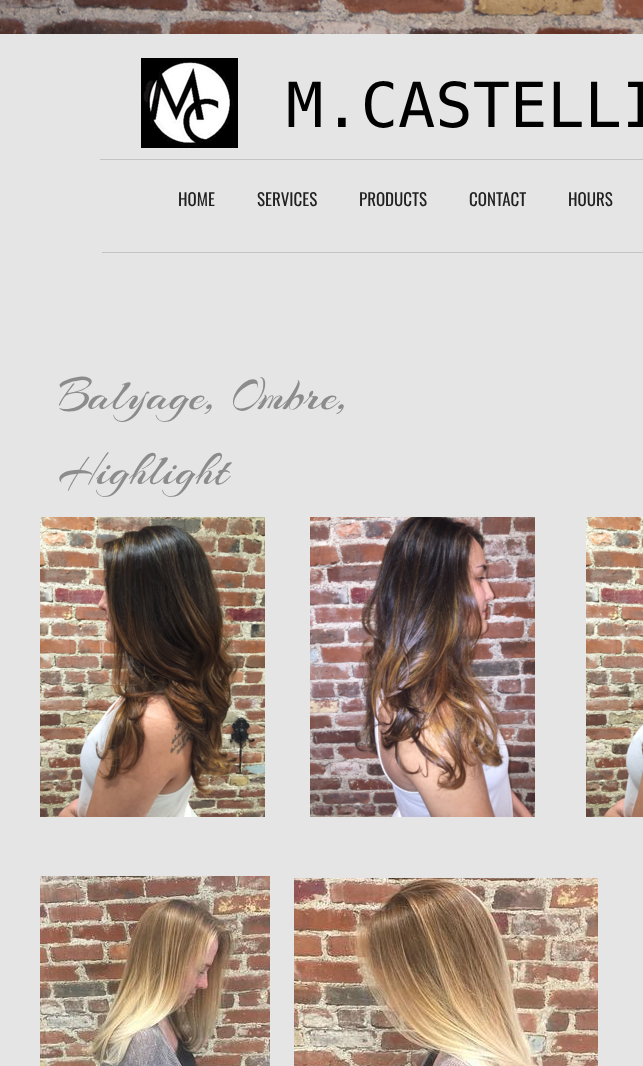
async function draw(canvas) {
	canvas.width = 643;
	canvas.height = 1066;
	const c = canvas.getContext('2d');
	c.miterLimit = 4;
	c.fontKerning = 'normal';
	async function loadImage(src) {
		const img = new Image();
		img.src = src;
		await img.decode();
		return img;
	}

	c.fillStyle = '#fff';
	c.fillRect(0, 0, 643, 1066);
	c.drawImage(await loadImage('img1.png'), 0, 0, 643, 34);
	c.fillStyle = '#e5e5e5';
	c.fillRect(0, 34, 643, 1032);
	c.drawImage(await loadImage('img2.png'), 141, 58, 97, 90);
	c.font = '62px DejaVu Sans Mono';
	c.fillStyle = '#000';
	c.fillText('M.CASTELLI', 286, 127);
	c.fillStyle = '#c4c4c4';
	c.fillRect(100, 159, 543, 1);
	c.font = '17px Oswald';
	c.fillStyle = '#212121';
	for (const [text, x, y] of [
		['HOME', 178, 206],
		['SERVICES', 257, 206],
		['PRODUCTS', 359, 206],
		['CONTACT', 469, 206],
		['HOURS', 568, 206],
	]) {
		c.fillText(text, x, y);
	}
	c.fillStyle = '#c4c4c4';
	c.fillRect(102, 252, 541, 1);
	c.font = '48px Arizonia';
	c.fillStyle = '#8c8c8c';
	c.fillText('Balyage, Ombre,', 58, 409);
	c.fillText('Highlight', 58, 484);
	c.drawImage(await loadImage('img3.png'), 40, 517, 225, 300);
	c.drawImage(await loadImage('img4.png'), 310, 517, 225, 300);
	c.drawImage(await loadImage('img5.png'), 586, 517, 57, 300);
	c.drawImage(await loadImage('img6.png'), 40, 876, 230, 190);
	c.drawImage(await loadImage('img7.png'), 294, 878, 304, 188);
}

draw(document.querySelector('canvas'));
